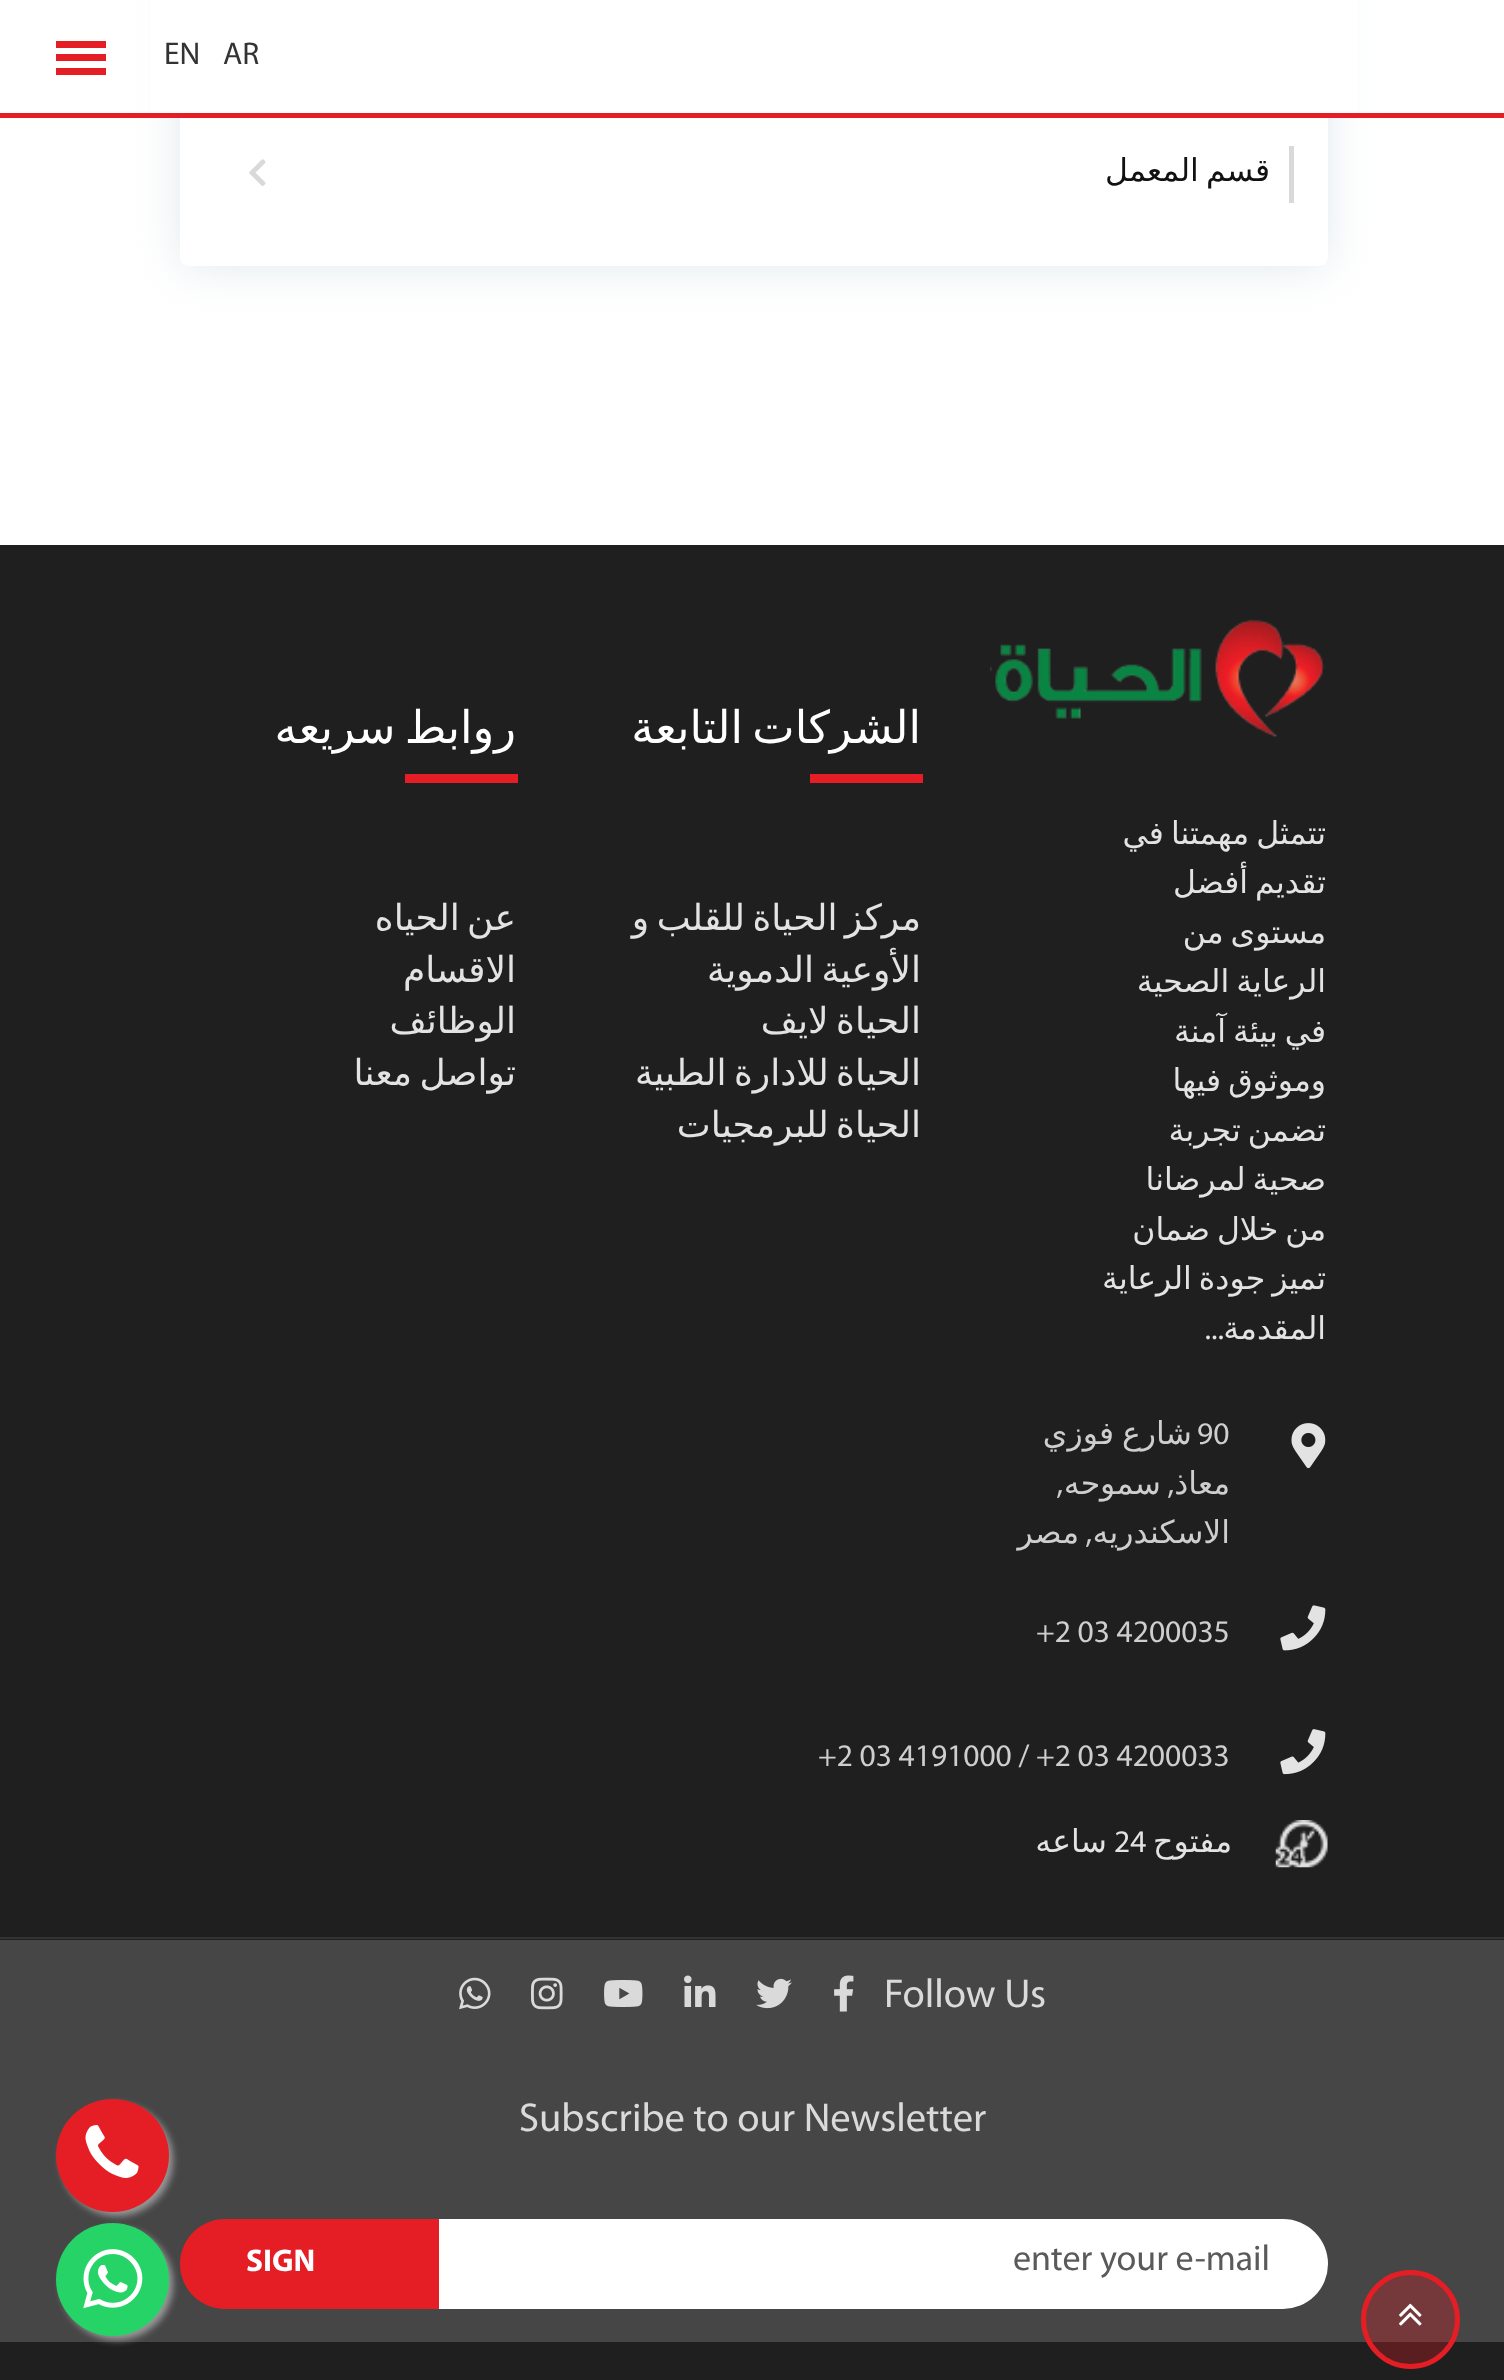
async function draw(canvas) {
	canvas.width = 1504;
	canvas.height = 2380;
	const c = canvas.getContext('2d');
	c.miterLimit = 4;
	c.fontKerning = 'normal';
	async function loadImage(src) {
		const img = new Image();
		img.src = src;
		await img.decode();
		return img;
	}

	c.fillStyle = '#fff';
	c.fillRect(0, 0, 1504, 2380);
	c.fillStyle = '#464646';
	c.fillRect(0, 1940, 1504, 402);
	c.fillStyle = '#1f1f1f';
	c.fillRect(0, 2342, 1504, 38);
	c.fillStyle = '#e51e254d';
	c.beginPath();
	c.arc(1410.5, 2319.5, 47, 0, 2 * Math.PI);
	c.fill();
	c.strokeStyle = '#e51e25';
	c.lineWidth = 5;
	c.stroke();
	c.drawImage(await loadImage('img1.png'), 1399, 2303, 23, 23);
	c.save();
	c.beginPath();
	c.moveTo(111, 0);
	c.lineTo(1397, 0);
	c.lineTo(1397, 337);
	c.lineTo(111, 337);
	c.closePath();
	c.moveTo(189, -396);
	c.lineTo(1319, -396);
	c.bezierCurveTo(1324, -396, 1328, -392, 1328, -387);
	c.lineTo(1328, 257);
	c.bezierCurveTo(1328, 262, 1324, 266, 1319, 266);
	c.lineTo(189, 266);
	c.bezierCurveTo(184, 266, 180, 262, 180, 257);
	c.lineTo(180, -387);
	c.bezierCurveTo(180, -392, 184, -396, 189, -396);
	c.closePath();
	c.clip('evenodd');
	c.fillStyle = '#dae3e8bf';
	c.filter = 'blur(22.5px)';
	c.beginPath();
	c.roundRect(180, -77, 1148, 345, 9);
	c.fill();
	c.filter = 'none';
	c.restore();
	for (const [x, y, w, h, color] of [
		[150, 0, 1208, 113, '#fff'],
		[0, 113, 1504, 5, '#e51e25'],
		[56, 41, 50, 7, '#e51e25'],
		[56, 54, 50, 7, '#e51e25'],
		[56, 68, 50, 7, '#e51e25'],
	]) {
		c.fillStyle = color;
		c.fillRect(x, y, w, h);
	}
	c.font = '31.5px Myriad';
	c.fillStyle = '#333';
	c.fillText('AR', 223, 64);
	c.fillText('EN', 164, 64);
	c.fillStyle = '#d9d9d9';
	c.fillRect(1289, 146, 5, 57);
	c.wordSpacing = '-3px';
	c.direction = 'rtl';
	c.font = '31.5px DejaVu Sans';
	c.fillStyle = '#111';
	c.fillText('قسم المعمل', 1270, 181);
	c.drawImage(await loadImage('img2.png'), 249, 159, 17, 27);
	c.fillStyle = '#1f1f1f';
	c.fillRect(0, 545, 1504, 1395);
	c.fillStyle = '#333';
	c.fillRect(0, 1937, 1504, 2);
	c.drawImage(await loadImage('img3.png'), 990, 619, 335, 119);
	c.fillStyle = '#e3e3e3';
	for (const [text, x, y] of [
		['تتمثل مهمتنا في', 1326, 844],
		['تقديم أفضل', 1326, 893],
		['مستوى من', 1326, 943],
		['الرعاية الصحية', 1326, 992],
		['في بيئة آمنة', 1326, 1042],
		['وموثوق فيها', 1326, 1091],
		['تضمن تجربة', 1326, 1141],
		['صحية لمرضانا', 1326, 1190],
		['من خلال ضمان', 1326, 1240],
		['تميز جودة الرعاية', 1326, 1289],
	]) {
		c.fillText(text, x, y);
	}
	c.wordSpacing = '0px';
	c.fillText('المقدمة', 1326, 1339);
	c.font = '31.5px Myriad';
	c.fillText('...', 1224, 1339);
	c.drawImage(await loadImage('img4.png'), 1291, 1423, 35, 46);
	c.direction = 'ltr';
	c.fillStyle = '#cecece';
	c.fillText('90', 1197, 1444);
	c.wordSpacing = '-2px';
	c.direction = 'rtl';
	c.font = '31.5px DejaVu Sans';
	c.fillText('شارع فوزي', 1192, 1444);
	c.wordSpacing = '0px';
	c.fillText('معاذ', 1230, 1494);
	c.font = '31.5px Myriad';
	c.fillText(',', 1174, 1494);
	c.font = '31.5px DejaVu Sans';
	c.fillText('سموحه', 1161, 1494);
	c.font = '31.5px Myriad';
	c.fillText(',', 1063, 1494);
	c.font = '31.5px DejaVu Sans';
	c.fillText('الاسكندريه', 1230, 1543);
	c.font = '31.5px Myriad';
	c.fillText(',', 1092, 1543);
	c.font = '31.5px DejaVu Sans';
	c.fillText('مصر', 1079, 1543);
	c.drawImage(await loadImage('img5.png'), 1280, 1605, 46, 46);
	c.direction = 'ltr';
	c.font = '31.5px Myriad';
	c.fillText('+2 03 4200035', 1036, 1642);
	c.drawImage(await loadImage('img6.png'), 1280, 1729, 46, 46);
	c.fillText('+2 03 4191000 / +2 03 4200033', 818, 1766);
	c.drawImage(await loadImage('img7.png'), 1275, 1820, 53, 48);
	c.direction = 'rtl';
	c.font = '31.5px DejaVu Sans';
	c.fillStyle = '#e3e3e3';
	c.fillText('مفتوح', 1232, 1852);
	c.direction = 'ltr';
	c.font = '31.5px Myriad';
	c.fillText('24', 1114, 1852);
	c.direction = 'rtl';
	c.font = '31.5px DejaVu Sans';
	c.fillText('ساعه', 1107, 1852);
	c.wordSpacing = '-5px';
	c.font = '45px DejaVu Sans';
	c.fillStyle = '#fff';
	c.fillText('الشركات التابعة', 921, 743);
	c.fillStyle = '#e51e25';
	c.fillRect(810, 774, 113, 9);
	c.wordSpacing = '-4px';
	c.font = '36px DejaVu Sans';
	c.fillStyle = '#e3e3e3';
	for (const [text, x, y] of [
		['مركز الحياة للقلب و', 921, 930],
		['الأوعية الدموية', 921, 982],
		['الحياة لايف', 921, 1033],
		['الحياة للادارة الطبية', 921, 1085],
		['الحياة للبرمجيات', 921, 1137],
	]) {
		c.fillText(text, x, y);
	}
	c.wordSpacing = '-5px';
	c.font = '45px DejaVu Sans';
	c.fillStyle = '#fff';
	c.fillText('روابط سريعه', 516, 743);
	c.fillStyle = '#e51e25';
	c.fillRect(405, 774, 113, 9);
	c.wordSpacing = '-4px';
	c.font = '36px DejaVu Sans';
	c.fillStyle = '#e3e3e3';
	c.fillText('عن الحياه', 516, 930);
	c.wordSpacing = '0px';
	c.fillText('الاقسام', 516, 982);
	c.fillText('الوظائف', 516, 1033);
	c.wordSpacing = '-4px';
	c.fillText('تواصل معنا', 516, 1085);
	c.wordSpacing = '0px';
	c.direction = 'ltr';
	c.font = '40.5px Myriad';
	c.fillStyle = '#dadada';
	c.fillText('Follow Us', 884, 2007);
	c.drawImage(await loadImage('img8.png'), 834, 1975, 20, 37);
	c.drawImage(await loadImage('img9.png'), 756, 1978, 36, 31);
	c.drawImage(await loadImage('img10.png'), 684, 1975, 32, 32);
	c.drawImage(await loadImage('img11.png'), 604, 1980, 39, 27);
	c.drawImage(await loadImage('img12.png'), 531, 1977, 32, 33);
	c.drawImage(await loadImage('img13.png'), 459, 1977, 32, 33);
	c.fillText('Subscribe to our Newsletter', 519, 2131);
	c.fillStyle = '#fff';
	c.beginPath();
	c.roundRect(439, 2219, 889, 90, [0, 45, 45, 0]);
	c.fill();
	c.font = '36px Myriad';
	c.fillStyle = '#5a5a5a';
	c.fillText('enter your e-mail', 1013, 2270);
	c.fillStyle = '#e51e25';
	c.beginPath();
	c.roundRect(180, 2219, 259, 90, [45, 0, 0, 45]);
	c.fill();
	c.font = 'bold 31.5px Myriad';
	c.fillStyle = '#fff';
	c.fillText('SIGN', 246, 2271);
	c.fillStyle = '#999';
	c.filter = 'blur(3.5px)';
	c.beginPath();
	c.roundRect(61, 2228, 112, 112, 56);
	c.fill();
	c.filter = 'none';
	c.fillStyle = '#25d366';
	c.beginPath();
	c.arc(112.5, 2279.5, 56.5, 0, 2 * Math.PI);
	c.fill();
	c.fillStyle = '#999';
	c.filter = 'blur(3.5px)';
	c.beginPath();
	c.roundRect(61, 2104, 112, 112, 56);
	c.fill();
	c.filter = 'none';
	c.fillStyle = '#e51e25';
	c.beginPath();
	c.arc(112.5, 2155.5, 56.5, 0, 2 * Math.PI);
	c.fill();
	c.drawImage(await loadImage('img14.png'), 85, 2125, 54, 53);
	c.drawImage(await loadImage('img15.png'), 83, 2249, 60, 60);
}

draw(document.querySelector('canvas'));
